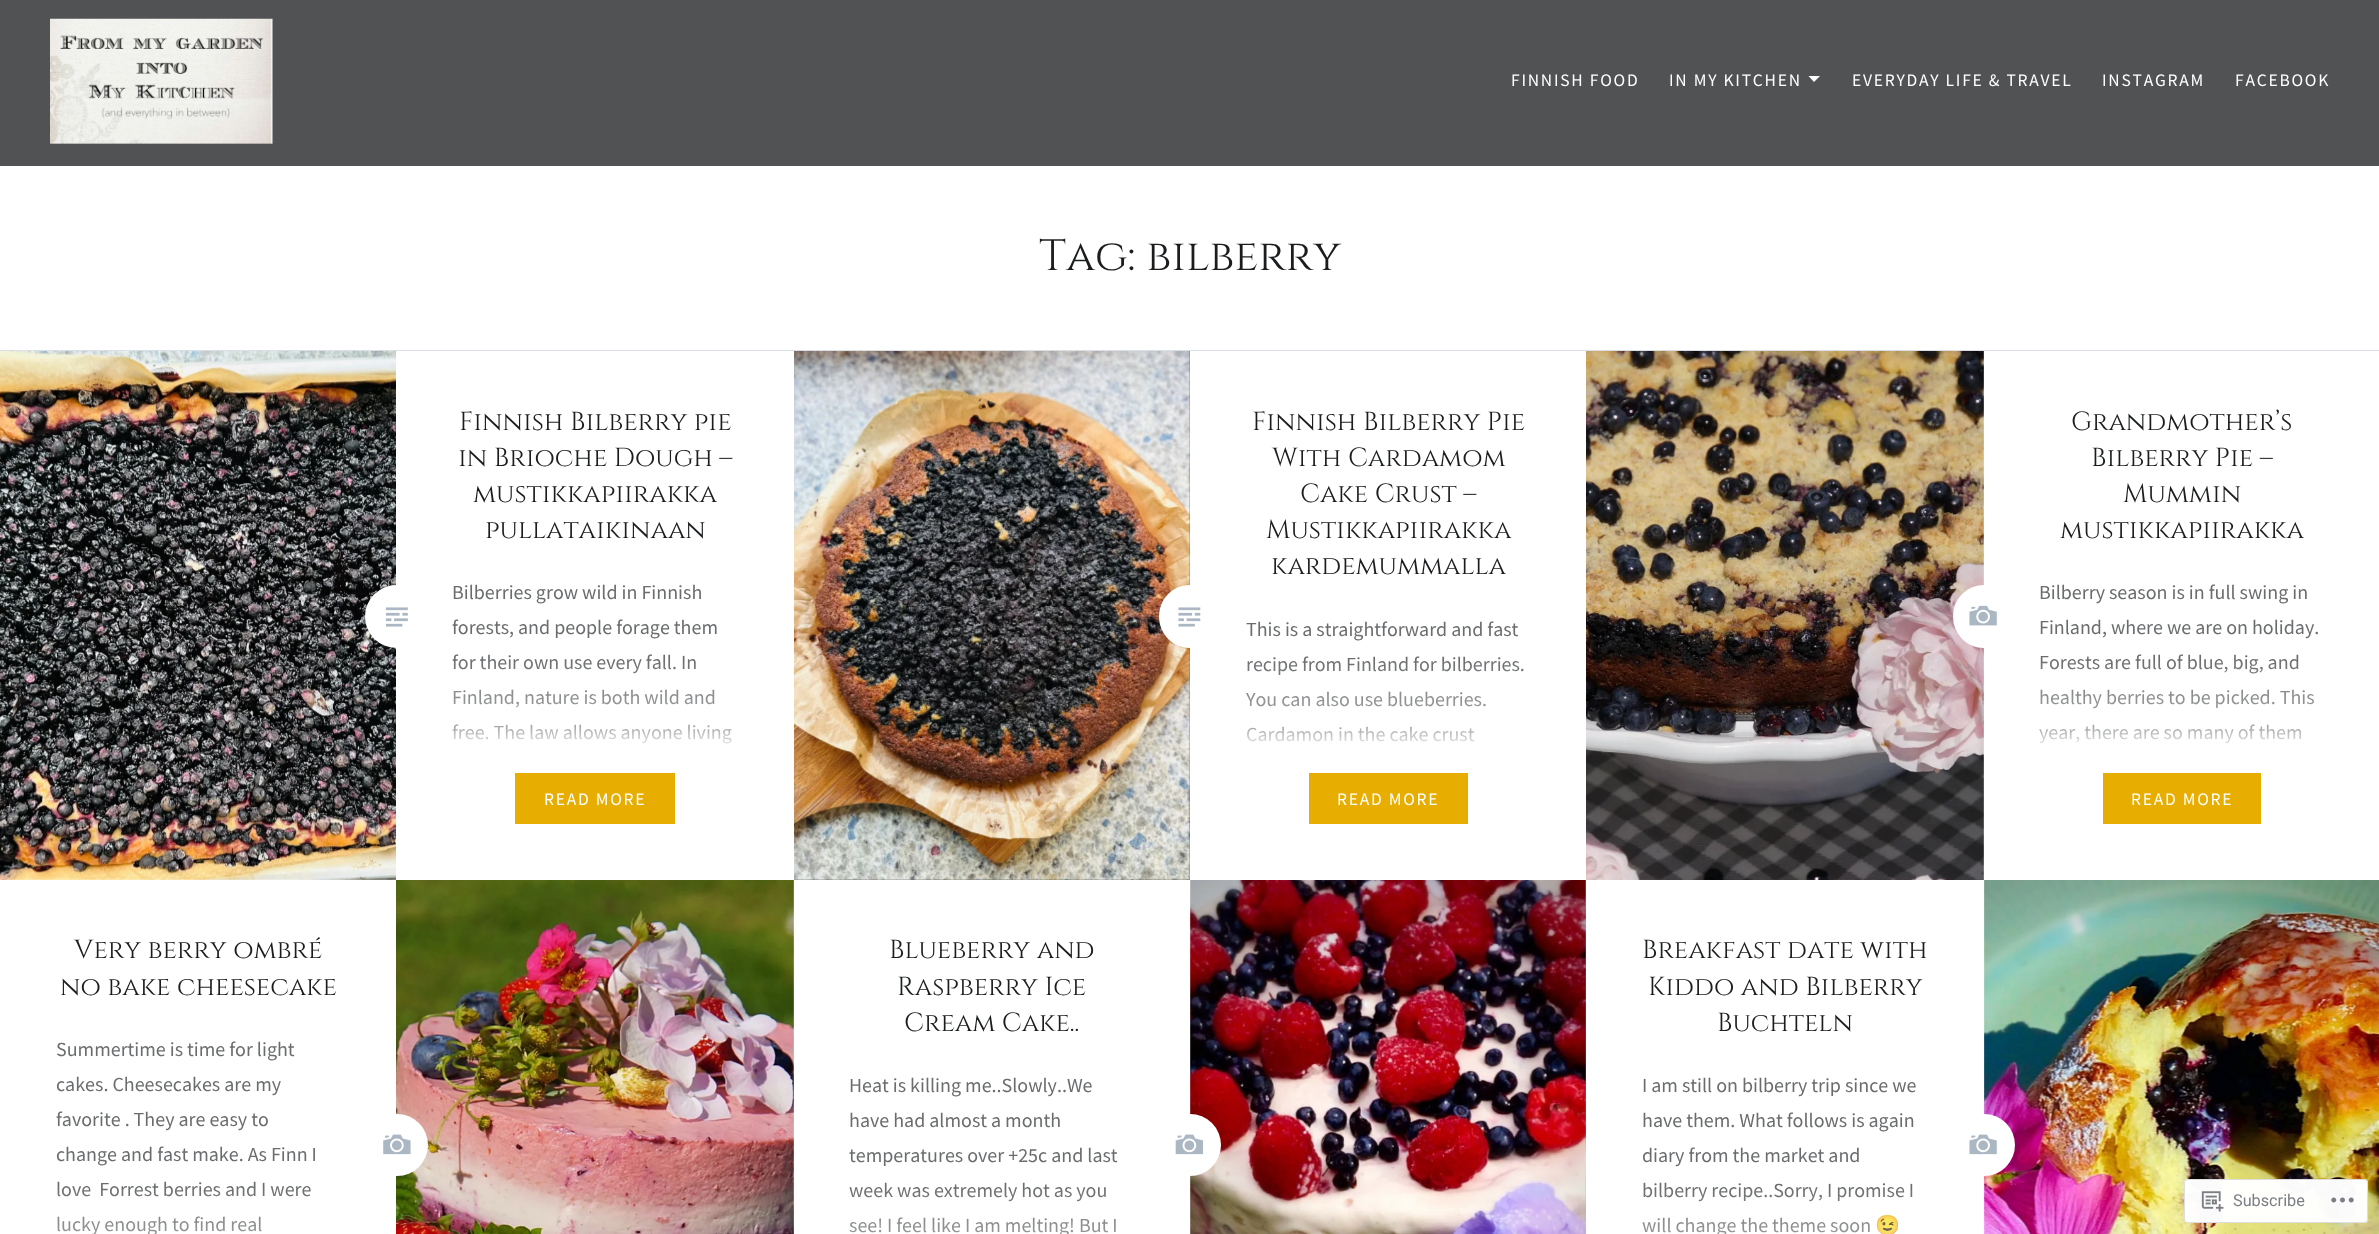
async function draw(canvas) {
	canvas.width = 2379;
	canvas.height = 1234;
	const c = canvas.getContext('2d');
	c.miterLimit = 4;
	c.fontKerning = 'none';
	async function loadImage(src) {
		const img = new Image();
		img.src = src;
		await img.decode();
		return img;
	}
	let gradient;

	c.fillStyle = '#fff';
	c.fillRect(0, 0, 2379, 1234);
	c.fillStyle = '#505254';
	c.fillRect(0, 0, 2379, 166);
	c.drawImage(await loadImage('img1.png'), 50, 18, 223, 126);
	c.letterSpacing = '1.75px';
	c.font = '17.5px Source Sans Pro';
	c.fillStyle = '#fff';
	c.fillText('FINNISH FOOD', 1511, 86);
	c.fillText('IN MY KITCHEN', 1669, 86);
	c.beginPath();
	c.moveTo(1808.5, 76);
	c.lineTo(1820, 76);
	c.lineTo(1814, 82);
	c.closePath();
	c.fill();
	for (const [text, x, y] of [
		['EVERYDAY LIFE & TRAVEL', 1852, 86],
		['INSTAGRAM', 2102, 86],
		['FACEBOOK', 2235, 86],
	]) {
		c.fillText(text, x, y);
	}
	c.fillStyle = '#d9dfe5';
	c.fillRect(0, 350, 2379, 1);
	c.letterSpacing = '0px';
	c.font = '43.75px Cinzel';
	c.fillStyle = '#1a1c1e';
	c.fillText('Tag: bilberry', 1039, 270);
	c.drawImage(await loadImage('img2.png'), 0, 351, 396, 529);
	c.fillStyle = '#fff';
	c.beginPath();
	c.arc(396.5, 616.5, 31.5, 0, 2 * Math.PI);
	c.fill();
	c.font = '26.25px Cinzel';
	c.fillStyle = '#1a1c1e';
	for (const [text, x, y] of [
		['Finnish Bilberry pie', 459, 430],
		['in Brioche Dough –', 458, 466],
		['mustikkapiirakka', 473, 502],
		['pullataikinaan', 485, 538],
	]) {
		c.fillText(text, x, y);
	}
	c.font = '20px Source Sans Pro';
	c.fillStyle = '#6a6c6e';
	for (const [text, x, y] of [
		['Bilberries grow wild in Finnish', 452, 599],
		['forests, and people forage them', 452, 634],
		['for their own use every fall. In', 452, 669],
		['Finland, nature is both wild and', 452, 704],
		['free. The law allows anyone living', 452, 739],
	]) {
		c.fillText(text, x, y);
	}
	gradient = c.createLinearGradient(595, 657, 595, 824);
	gradient.addColorStop(0, '#ffffff00');
	gradient.addColorStop(1, '#fff');
	c.fillStyle = gradient;
	c.fillRect(452, 661, 280, 83);
	gradient = c.createLinearGradient(595, 728, 595, 755);
	gradient.addColorStop(0, '#ffffff00');
	gradient.addColorStop(1, '#fff');
	c.fillStyle = gradient;
	c.fillRect(453, 729, 279, 15);
	c.fillStyle = '#e7ae01';
	c.fillRect(515, 773, 160, 51);
	c.letterSpacing = '1.75px';
	c.font = '17.5px Source Sans Pro';
	c.fillStyle = '#fff';
	c.fillText('READ MORE', 544, 805);
	c.drawImage(await loadImage('img3.png'), 385, 607, 23, 20);
	c.fillStyle = '#242629';
	c.fillRect(794, 351, 396, 529);
	c.drawImage(await loadImage('img4.png'), 794, 351, 396, 529);
	c.fillStyle = '#fff';
	c.beginPath();
	c.roundRect(1159, 585, 62, 63, 31);
	c.fill();
	c.letterSpacing = '0px';
	c.font = '26.25px Cinzel';
	c.fillStyle = '#1a1c1e';
	for (const [text, x, y] of [
		['Finnish Bilberry Pie', 1252, 430],
		['With Cardamom', 1272, 466],
		['Cake Crust –', 1300, 502],
		['Mustikkapiirakka', 1266, 538],
		['kardemummalla', 1271, 574],
	]) {
		c.fillText(text, x, y);
	}
	c.font = '20px Source Sans Pro';
	c.fillStyle = '#6a6c6e';
	for (const [text, x, y] of [
		['This is a straightforward and fast', 1246, 636],
		['recipe from Finland for bilberries.', 1246, 671],
		['You can also use blueberries.', 1246, 706],
		['Cardamon in the cake crust', 1246, 741],
	]) {
		c.fillText(text, x, y);
	}
	gradient = c.createLinearGradient(1388, 657, 1388, 824);
	gradient.addColorStop(0, '#ffffff00');
	gradient.addColorStop(1, '#fff');
	c.fillStyle = gradient;
	c.fillRect(1245, 661, 278, 81);
	gradient = c.createLinearGradient(1388, 728, 1388, 755);
	gradient.addColorStop(0, '#ffffff00');
	gradient.addColorStop(1, '#fff');
	c.fillStyle = gradient;
	c.fillRect(1246, 729, 228, 13);
	c.fillStyle = '#e7ae01';
	c.fillRect(1309, 773, 159, 51);
	c.letterSpacing = '1.75px';
	c.font = '17.5px Source Sans Pro';
	c.fillStyle = '#fff';
	c.fillText('READ MORE', 1337, 805);
	c.drawImage(await loadImage('img5.png'), 1178, 607, 23, 20);
	c.drawImage(await loadImage('img6.png'), 1586, 351, 398, 529);
	c.beginPath();
	c.roundRect(1953, 585, 62, 63, 31);
	c.fill();
	c.letterSpacing = '0px';
	c.font = '26.25px Cinzel';
	c.fillStyle = '#1a1c1e';
	for (const [text, x, y] of [
		['Grandmother’s', 2071, 430],
		['Bilberry Pie –', 2091, 466],
		['Mummin', 2123, 502],
		['mustikkapiirakka', 2060, 538],
	]) {
		c.fillText(text, x, y);
	}
	c.font = '20px Source Sans Pro';
	c.fillStyle = '#6a6c6e';
	for (const [text, x, y] of [
		['Bilberry season is in full swing in', 2039, 599],
		['Finland, where we are on holiday.', 2039, 634],
		['Forests are full of blue, big, and', 2039, 669],
		['healthy berries to be picked. This', 2039, 704],
		['year, there are so many of them', 2039, 739],
	]) {
		c.fillText(text, x, y);
	}
	gradient = c.createLinearGradient(2182, 657, 2182, 824);
	gradient.addColorStop(0, '#ffffff00');
	gradient.addColorStop(1, '#fff');
	c.fillStyle = gradient;
	c.fillRect(2039, 661, 275, 83);
	gradient = c.createLinearGradient(2182, 728, 2182, 755);
	gradient.addColorStop(0, '#ffffff00');
	gradient.addColorStop(1, '#fff');
	c.fillStyle = gradient;
	c.fillRect(2039, 729, 262, 15);
	c.fillStyle = '#e7ae01';
	c.fillRect(2103, 773, 158, 51);
	c.letterSpacing = '1.75px';
	c.font = '17.5px Source Sans Pro';
	c.fillStyle = '#fff';
	c.fillText('READ MORE', 2131, 805);
	c.drawImage(await loadImage('img7.png'), 1969, 605, 28, 21);
	c.letterSpacing = '0px';
	c.font = '26.25px Cinzel';
	c.fillStyle = '#1a1c1e';
	c.fillText('Very berry ombré', 74, 958);
	c.fillText('no bake cheesecake', 60, 995);
	c.font = '20px Source Sans Pro';
	c.fillStyle = '#6a6c6e';
	for (const [text, x, y] of [
		['Summertime is time for light', 56, 1056],
		['cakes. Cheesecakes are my', 56, 1091],
		['favorite . They are easy to', 56, 1126],
		['change and fast make. As Finn I', 56, 1161],
		['love  Forrest berries and I were', 56, 1196],
		['lucky enough to find real', 56, 1231],
	]) {
		c.fillText(text, x, y);
	}
	gradient = c.createLinearGradient(198, 1185, 198, 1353);
	gradient.addColorStop(0, '#ffffff00');
	gradient.addColorStop(1, '#fff');
	c.fillStyle = gradient;
	c.fillRect(57, 1189, 253, 45);
	c.drawImage(await loadImage('img9.png'), 396, 880, 398, 354);
	c.fillStyle = '#fff';
	c.beginPath();
	c.roundRect(365, 1114, 63, 62, 31);
	c.fill();
	c.drawImage(await loadImage('img8.png'), 383, 1134, 28, 21);
	c.font = '26.25px Cinzel';
	c.fillStyle = '#1a1c1e';
	for (const [text, x, y] of [
		['Blueberry and', 889, 958],
		['Raspberry Ice', 897, 995],
		['Cream Cake..', 904, 1031],
	]) {
		c.fillText(text, x, y);
	}
	c.font = '20px Source Sans Pro';
	c.fillStyle = '#6a6c6e';
	for (const [text, x, y] of [
		['Heat is killing me..Slowly..We', 849, 1092],
		['have had almost a month', 849, 1127],
		['temperatures over +25c and last', 849, 1162],
		['week was extremely hot as you', 849, 1197],
		['see! I feel like I am melting! But I', 849, 1232],
	]) {
		c.fillText(text, x, y);
	}
	gradient = c.createLinearGradient(992, 1185, 992, 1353);
	gradient.addColorStop(0, '#ffffff00');
	gradient.addColorStop(1, '#fff');
	c.fillStyle = gradient;
	c.fillRect(849, 1189, 267, 45);
	c.drawImage(await loadImage('img11.png'), 1190, 880, 396, 354);
	c.fillStyle = '#fff';
	c.beginPath();
	c.arc(1190, 1145, 31, 0, 2 * Math.PI);
	c.fill();
	c.drawImage(await loadImage('img10.png'), 1175, 1134, 28, 21);
	c.font = '26.25px Cinzel';
	c.fillStyle = '#1a1c1e';
	for (const [text, x, y] of [
		['Breakfast date with', 1642, 958],
		['Kiddo and Bilberry', 1648, 995],
		['Buchteln', 1717, 1031],
	]) {
		c.fillText(text, x, y);
	}
	c.font = '20px Source Sans Pro';
	c.fillStyle = '#6a6c6e';
	for (const [text, x, y] of [
		['I am still on bilberry trip since we', 1642, 1092],
		['have them. What follows is again', 1642, 1127],
		['diary from the market and', 1642, 1162],
		['bilberry recipe..Sorry, I promise I', 1642, 1197],
		['will change the theme soon', 1642, 1232],
	]) {
		c.fillText(text, x, y);
	}
	c.font = '20px Noto Color Emoji';
	c.fillText('😉', 1875, 1232);
	gradient = c.createLinearGradient(1785, 1185, 1785, 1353);
	gradient.addColorStop(0, '#ffffff00');
	gradient.addColorStop(1, '#fff');
	c.fillStyle = gradient;
	c.fillRect(1642, 1189, 271, 45);
	c.drawImage(await loadImage('img13.png'), 1984, 880, 395, 354);
	c.fillStyle = '#fff';
	c.beginPath();
	c.arc(1984, 1145, 31, 0, 2 * Math.PI);
	c.fill();
	c.drawImage(await loadImage('img12.png'), 1969, 1134, 28, 21);
	c.fillStyle = '#fffffffa';
	c.beginPath();
	c.roundRect(2184, 1179, 184, 44, 4);
	c.fill();
	c.beginPath();
	c.roundRect(2184.5, 1179.5, 183, 43, 3.5);
	c.strokeStyle = '#dcdcdefa';
	c.stroke();
	c.drawImage(await loadImage('img14.png'), 2201, 1191, 23, 21);
	c.font = '16.25px Roboto';
	c.fillStyle = '#7b7f84';
	c.fillText('Subscribe', 2233, 1206);
	c.drawImage(await loadImage('img15.png'), 2331, 1197, 23, 6);
}

draw(document.querySelector('canvas'));
